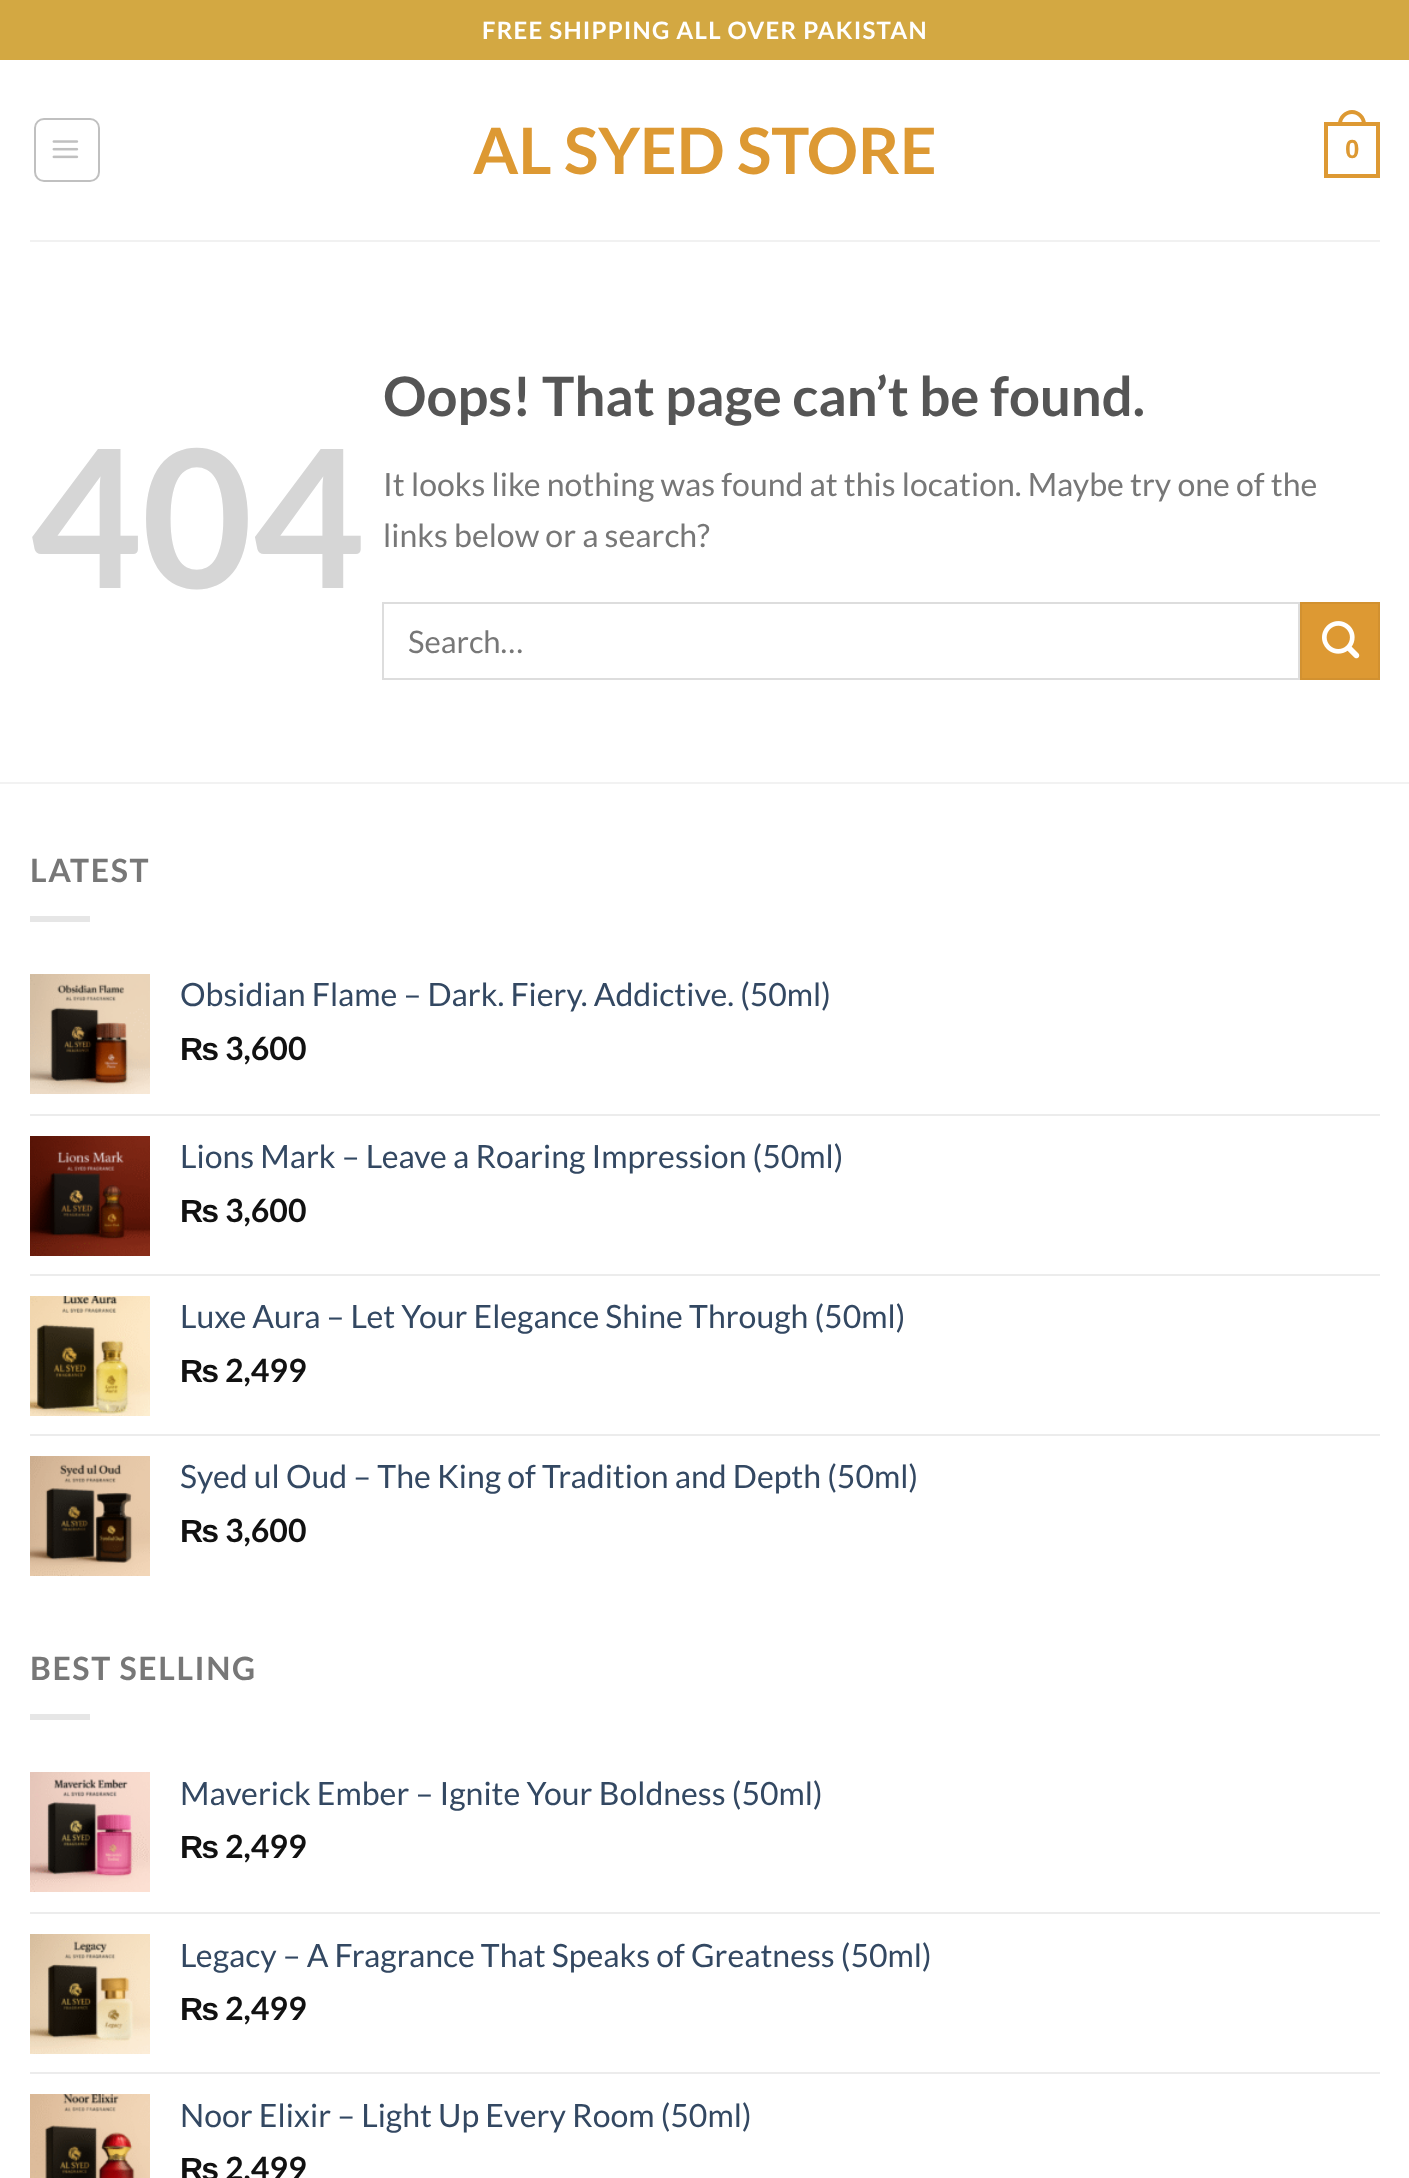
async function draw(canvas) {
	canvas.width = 1409;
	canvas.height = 2178;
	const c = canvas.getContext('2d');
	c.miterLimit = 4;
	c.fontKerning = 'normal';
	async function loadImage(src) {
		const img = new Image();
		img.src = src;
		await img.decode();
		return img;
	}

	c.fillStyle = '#fff';
	c.fillRect(0, 0, 1409, 2178);
	c.fillStyle = '#d3a842';
	c.fillRect(0, 0, 1409, 60);
	c.letterSpacing = '1.2px';
	c.font = 'bold 24px Lato';
	c.fillStyle = '#fff';
	c.fillText('FREE SHIPPING ALL OVER PAKISTAN', 482, 39);
	c.beginPath();
	c.roundRect(35, 119, 64, 62, 9);
	c.strokeStyle = '#c0c0c0';
	c.lineWidth = 2;
	c.stroke();
	c.drawImage(await loadImage('img1.png'), 52, 140, 27, 19);
	c.letterSpacing = '0px';
	c.font = 'bold 64px Lato';
	c.fillStyle = '#d93';
	c.fillText('AL SYED STORE', 473, 174);
	c.strokeStyle = '#d93';
	c.lineWidth = 4;
	c.strokeRect(1326, 124, 52, 52);
	c.beginPath();
	c.moveTo(1352, 110);
	c.bezierCurveTo(1359.5, 110, 1366, 116.5, 1366, 124);
	c.lineTo(1366, 126);
	c.lineTo(1338, 126);
	c.lineTo(1338, 124);
	c.bezierCurveTo(1338, 116.5, 1344.5, 110, 1352, 110);
	c.closePath();
	c.moveTo(1352, 114);
	c.bezierCurveTo(1357.5, 114, 1362, 118.5, 1362, 124);
	c.lineTo(1362, 126);
	c.lineTo(1342, 126);
	c.lineTo(1342, 124);
	c.bezierCurveTo(1342, 118.5, 1346.5, 114, 1352, 114);
	c.closePath();
	c.fill('evenodd');
	c.font = 'bold 26px Liberation Sans';
	c.fillText('0', 1345, 158);
	c.fillStyle = '#f1f1f1';
	c.fillRect(30, 240, 1350, 2);
	c.font = 'bold 192px Lato';
	c.fillStyle = '#d6d6d6';
	c.fillText('404', 30, 588);
	c.font = 'bold 54.4px Lato';
	c.fillStyle = '#555';
	c.fillText('Oops! That page can’t be found.', 383, 416);
	c.font = '32px Lato';
	c.fillStyle = '#777';
	c.fillText('It looks like nothing was found at this location. Maybe try one of the', 383, 496);
	c.fillText('links below or a search?', 383, 547);
	c.strokeStyle = '#ddd';
	c.lineWidth = 2;
	c.strokeRect(383, 603, 916, 76);
	c.font = '31px Lato';
	c.fillText('Search…', 408, 653);
	c.fillStyle = '#d93';
	c.beginPath();
	c.rect(1301, 603, 78, 76);
	c.fill();
	c.strokeStyle = '#d29130';
	c.stroke();
	c.drawImage(await loadImage('img2.png'), 1322, 621, 38, 38);
	c.fillStyle = '#f2f2f2';
	c.fillRect(0, 782, 1409, 2);
	c.letterSpacing = '1.6px';
	c.font = 'bold 32px Lato';
	c.fillStyle = '#777';
	c.fillText('LATEST', 30, 882);
	c.fillStyle = '#e6e6e6';
	c.fillRect(30, 916, 60, 6);
	c.drawImage(await loadImage('img3.png'), 30, 974, 120, 120);
	c.letterSpacing = '0px';
	c.font = '32px Lato';
	c.fillStyle = '#334862';
	c.fillText('Obsidian Flame – Dark. Fiery. Addictive. (50ml)', 180, 1006);
	c.font = 'bold 32px Liberation Sans';
	c.fillStyle = '#111';
	c.fillText('₨', 180, 1060);
	c.font = 'bold 32px Lato';
	c.fillText('3,600', 225, 1060);
	c.fillStyle = '#ececec';
	c.fillRect(30, 1114, 1350, 2);
	c.drawImage(await loadImage('img4.png'), 30, 1136, 120, 120);
	c.font = '32px Lato';
	c.fillStyle = '#334862';
	c.fillText('Lions Mark – Leave a Roaring Impression (50ml)', 180, 1168);
	c.font = 'bold 32px Liberation Sans';
	c.fillStyle = '#111';
	c.fillText('₨', 180, 1222);
	c.font = 'bold 32px Lato';
	c.fillText('3,600', 225, 1222);
	c.fillStyle = '#ececec';
	c.fillRect(30, 1274, 1350, 2);
	c.drawImage(await loadImage('img5.png'), 30, 1296, 120, 120);
	c.font = '32px Lato';
	c.fillStyle = '#334862';
	c.fillText('Luxe Aura – Let Your Elegance Shine Through (50ml)', 180, 1328);
	c.font = 'bold 32px Liberation Sans';
	c.fillStyle = '#111';
	c.fillText('₨', 180, 1382);
	c.font = 'bold 32px Lato';
	c.fillText('2,499', 225, 1382);
	c.fillStyle = '#ececec';
	c.fillRect(30, 1434, 1350, 2);
	c.drawImage(await loadImage('img6.png'), 30, 1456, 120, 120);
	c.font = '32px Lato';
	c.fillStyle = '#334862';
	c.fillText('Syed ul Oud – The King of Tradition and Depth (50ml)', 180, 1488);
	c.font = 'bold 32px Liberation Sans';
	c.fillStyle = '#111';
	c.fillText('₨', 180, 1542);
	c.font = 'bold 32px Lato';
	c.fillText('3,600', 225, 1542);
	c.letterSpacing = '1.6px';
	c.fillStyle = '#777';
	c.fillText('BEST SELLING', 30, 1680);
	c.fillStyle = '#e6e6e6';
	c.fillRect(30, 1714, 60, 6);
	c.drawImage(await loadImage('img7.png'), 30, 1772, 120, 120);
	c.letterSpacing = '0px';
	c.font = '32px Lato';
	c.fillStyle = '#334862';
	c.fillText('Maverick Ember – Ignite Your Boldness (50ml)', 180, 1805);
	c.font = 'bold 32px Liberation Sans';
	c.fillStyle = '#111';
	c.fillText('₨', 180, 1858);
	c.font = 'bold 32px Lato';
	c.fillText('2,499', 225, 1858);
	c.fillStyle = '#ececec';
	c.fillRect(30, 1912, 1350, 2);
	c.drawImage(await loadImage('img8.png'), 30, 1934, 120, 120);
	c.font = '32px Lato';
	c.fillStyle = '#334862';
	c.fillText('Legacy – A Fragrance That Speaks of Greatness (50ml)', 180, 1967);
	c.font = 'bold 32px Liberation Sans';
	c.fillStyle = '#111';
	c.fillText('₨', 180, 2020);
	c.font = 'bold 32px Lato';
	c.fillText('2,499', 225, 2020);
	c.fillStyle = '#ececec';
	c.fillRect(30, 2072, 1350, 2);
	c.drawImage(await loadImage('img9.png'), 30, 2094, 120, 84);
	c.font = '32px Lato';
	c.fillStyle = '#334862';
	c.fillText('Noor Elixir – Light Up Every Room (50ml)', 180, 2127);
	c.font = 'bold 32px Liberation Sans';
	c.fillStyle = '#111';
	c.fillText('₨', 180, 2180);
	c.font = 'bold 32px Lato';
	c.fillText('2,499', 225, 2180);
}

draw(document.querySelector('canvas'));
